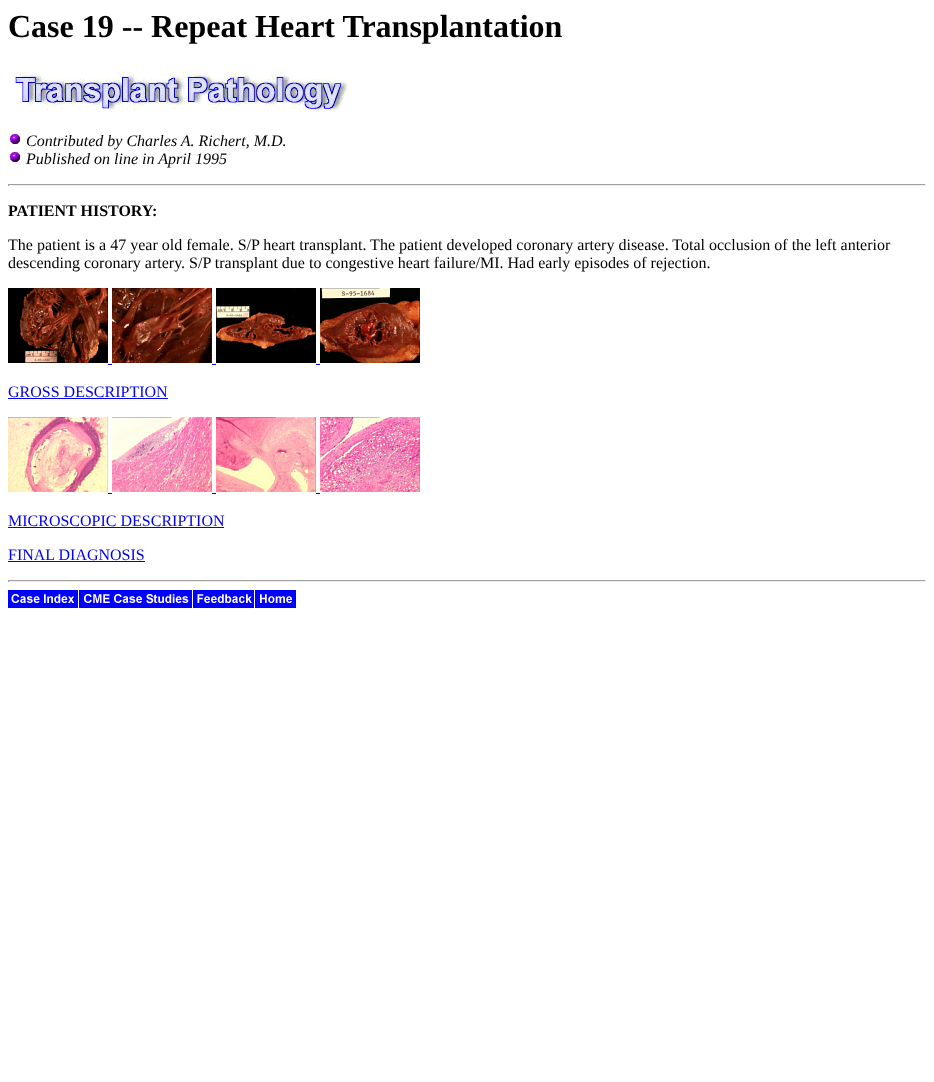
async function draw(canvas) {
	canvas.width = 934;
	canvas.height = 1082;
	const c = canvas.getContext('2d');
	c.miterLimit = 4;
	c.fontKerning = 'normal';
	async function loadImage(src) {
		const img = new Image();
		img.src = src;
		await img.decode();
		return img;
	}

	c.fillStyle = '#fff';
	c.fillRect(0, 0, 934, 1082);
	c.font = 'bold 32px Liberation Serif';
	c.fillStyle = '#000';
	c.fillText('Case 19 -- Repeat Heart Transplantation', 8, 37);
	c.drawImage(await loadImage('img1.png'), 14, 70, 334, 42);
	c.drawImage(await loadImage('img2.png'), 10, 134, 10, 10);
	c.font = 'italic 16px Liberation Serif';
	c.fillText('Contributed by Charles A. Richert, M.D.', 26, 146);
	c.drawImage(await loadImage('img2.png'), 10, 152, 10, 10);
	c.fillText('Published on line in April 1995', 26, 164);
	for (const [x, y, w, h, color] of [
		[8, 184, 918, 1, '#9f9f9f'],
		[925, 184, 1, 2, '#eee'],
		[8, 185, 918, 1, '#eee'],
		[8, 184, 1, 2, '#9f9f9f'],
	]) {
		c.fillStyle = color;
		c.fillRect(x, y, w, h);
	}
	c.font = 'bold 16px Liberation Serif';
	c.fillStyle = '#000';
	c.fillText('PATIENT HISTORY:', 8, 216);
	c.font = '16px Liberation Serif';
	c.fillText('The patient is a 47 year old female. S/P heart transplant. The patient developed coronary artery disease. Total occlusion of the left anterior', 8, 250);
	c.fillText('descending coronary artery. S/P transplant due to congestive heart failure/MI. Had early episodes of rejection.', 8, 268);
	c.drawImage(await loadImage('img3.png'), 8, 288, 100, 75);
	c.drawImage(await loadImage('img4.png'), 112, 288, 100, 75);
	c.drawImage(await loadImage('img5.png'), 216, 288, 100, 75);
	c.drawImage(await loadImage('img6.png'), 320, 288, 100, 75);
	for (const [x, y, w, h, color] of [
		[108, 364, 4, 1, '#00e'],
		[212, 364, 4, 1, '#00e'],
		[316, 364, 4, 1, '#00e'],
	]) {
		c.fillStyle = color;
		c.fillRect(x, y, w, h);
	}
	c.fillText('GROSS DESCRIPTION', 8, 397);
	c.fillRect(8, 398, 160, 1);
	c.drawImage(await loadImage('img7.png'), 8, 417, 100, 75);
	c.drawImage(await loadImage('img8.png'), 112, 417, 100, 75);
	c.drawImage(await loadImage('img9.png'), 216, 417, 100, 75);
	c.drawImage(await loadImage('img10.png'), 320, 417, 100, 75);
	for (const [x, y, w, h, color] of [
		[108, 493, 4, 1, '#00e'],
		[212, 493, 4, 1, '#00e'],
		[316, 493, 4, 1, '#00e'],
	]) {
		c.fillStyle = color;
		c.fillRect(x, y, w, h);
	}
	c.fillText('MICROSCOPIC DESCRIPTION', 8, 526);
	c.fillRect(8, 527, 216, 1);
	c.fillText('FINAL DIAGNOSIS', 8, 560);
	for (const [x, y, w, h, color] of [
		[8, 561, 137, 1, '#00e'],
		[8, 580, 918, 1, '#9f9f9f'],
		[925, 580, 1, 2, '#eee'],
		[8, 581, 918, 1, '#eee'],
		[8, 580, 1, 2, '#9f9f9f'],
	]) {
		c.fillStyle = color;
		c.fillRect(x, y, w, h);
	}
	c.drawImage(await loadImage('img11.png'), 8, 590, 70, 18);
	c.drawImage(await loadImage('img12.png'), 79, 590, 113, 18);
	c.drawImage(await loadImage('img13.png'), 193, 590, 61, 18);
	c.drawImage(await loadImage('img14.png'), 255, 590, 41, 18);
}

draw(document.querySelector('canvas'));
